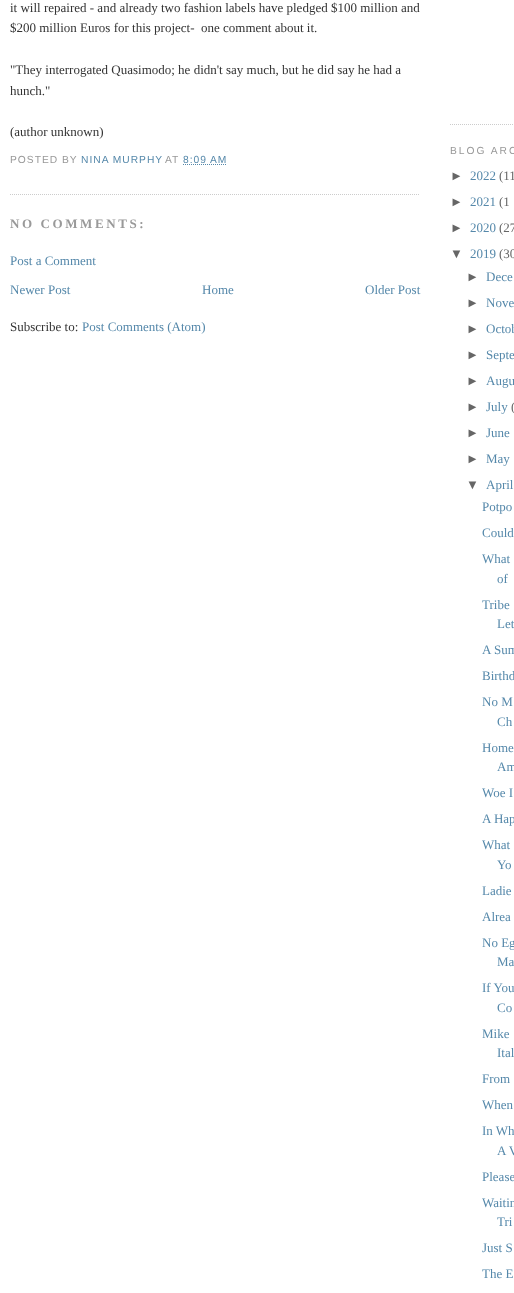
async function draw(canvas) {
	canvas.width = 514;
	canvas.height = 1293;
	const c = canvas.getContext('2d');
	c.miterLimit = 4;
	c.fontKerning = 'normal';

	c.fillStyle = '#fff';
	c.fillRect(0, 0, 514, 1293);
	c.beginPath();
	c.moveTo(10, 194.5);
	c.lineTo(420, 194.5);
	c.strokeStyle = '#ccc';
	c.setLineDash([1, 1]);
	c.stroke();
	c.font = '13px Liberation Serif';
	c.fillStyle = '#333';
	for (const [text, x, y] of [
		['it will repaired - and already two fashion labels have pledged $100 million and', 10, 12],
		['$200 million Euros for this project-  one comment about it.', 10, 32],
		['"They interrogated Quasimodo; he didn\'t say much, but he did say he had a', 10, 74],
		['hunch."', 10, 95],
		['(author unknown)', 10, 136],
	]) {
		c.fillText(text, x, y);
	}
	c.letterSpacing = '1px';
	c.font = '10.25px Liberation Sans';
	c.fillStyle = '#999';
	c.fillText('POSTED BY', 10, 163);
	c.fillStyle = '#58a';
	c.fillText('NINA MURPHY', 81, 163);
	c.fillStyle = '#999';
	c.fillText('AT', 165, 163);
	c.fillStyle = '#58a';
	c.fillText('8:09 AM', 183, 163);
	c.beginPath();
	c.moveTo(183, 164.5);
	c.lineTo(227, 164.5);
	c.strokeStyle = '#58a';
	c.stroke();
	c.letterSpacing = '2.6px';
	c.font = 'bold 13px Liberation Serif';
	c.fillStyle = '#999';
	c.fillText('NO COMMENTS:', 10, 228);
	c.letterSpacing = '0px';
	c.font = '13px Liberation Serif';
	c.fillStyle = '#58a';
	for (const [text, x, y] of [
		['Post a Comment', 10, 265],
		['Newer Post', 10, 294],
		['Home', 202, 294],
		['Older Post', 365, 294],
	]) {
		c.fillText(text, x, y);
	}
	c.fillStyle = '#333';
	c.fillText('Subscribe to:', 10, 331);
	c.fillStyle = '#58a';
	c.fillText('Post Comments (Atom)', 82, 331);
	c.beginPath();
	c.moveTo(450, 124.5);
	c.lineTo(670, 124.5);
	c.strokeStyle = '#ccc';
	c.stroke();
	c.letterSpacing = '2px';
	c.font = '10.25px Liberation Sans';
	c.fillStyle = '#999';
	c.fillText('BLOG ARC', 450, 154);
	c.letterSpacing = '0px';
	c.font = '13px Liberation Sans';
	c.fillStyle = '#666';
	c.fillText('►', 450, 180);
	c.font = '13px Liberation Serif';
	c.fillStyle = '#58a';
	c.fillText('2022', 470, 180);
	c.fillStyle = '#666';
	c.fillText('(11', 499, 180);
	c.font = '13px Liberation Sans';
	c.fillText('►', 450, 206);
	c.font = '13px Liberation Serif';
	c.fillStyle = '#58a';
	c.fillText('2021', 470, 206);
	c.fillStyle = '#666';
	c.fillText('(1', 499, 206);
	c.font = '13px Liberation Sans';
	c.fillText('►', 450, 232);
	c.font = '13px Liberation Serif';
	c.fillStyle = '#58a';
	c.fillText('2020', 470, 232);
	c.fillStyle = '#666';
	c.fillText('(27', 499, 232);
	c.font = '13px Liberation Sans';
	c.fillText('▼', 450, 258);
	c.font = '13px Liberation Serif';
	c.fillStyle = '#58a';
	c.fillText('2019', 470, 258);
	c.fillStyle = '#666';
	c.fillText('(30', 499, 258);
	c.font = '13px Liberation Sans';
	c.fillText('►', 466, 281);
	c.font = '13px Liberation Serif';
	c.fillStyle = '#58a';
	c.fillText('Dece', 486, 281);
	c.font = '13px Liberation Sans';
	c.fillStyle = '#666';
	c.fillText('►', 466, 307);
	c.font = '13px Liberation Serif';
	c.fillStyle = '#58a';
	c.fillText('Nove', 486, 307);
	c.font = '13px Liberation Sans';
	c.fillStyle = '#666';
	c.fillText('►', 466, 333);
	c.font = '13px Liberation Serif';
	c.fillStyle = '#58a';
	c.fillText('Octob', 486, 333);
	c.font = '13px Liberation Sans';
	c.fillStyle = '#666';
	c.fillText('►', 466, 359);
	c.font = '13px Liberation Serif';
	c.fillStyle = '#58a';
	c.fillText('Septe', 486, 359);
	c.font = '13px Liberation Sans';
	c.fillStyle = '#666';
	c.fillText('►', 466, 385);
	c.font = '13px Liberation Serif';
	c.fillStyle = '#58a';
	c.fillText('Augu', 486, 385);
	c.font = '13px Liberation Sans';
	c.fillStyle = '#666';
	c.fillText('►', 466, 411);
	c.font = '13px Liberation Serif';
	c.fillStyle = '#58a';
	c.fillText('July', 486, 411);
	c.fillStyle = '#666';
	c.fillText('(', 511, 411);
	c.font = '13px Liberation Sans';
	c.fillText('►', 466, 437);
	c.font = '13px Liberation Serif';
	c.fillStyle = '#58a';
	c.fillText('June', 486, 437);
	c.font = '13px Liberation Sans';
	c.fillStyle = '#666';
	c.fillText('►', 466, 463);
	c.font = '13px Liberation Serif';
	c.fillStyle = '#58a';
	c.fillText('May', 486, 463);
	c.font = '13px Liberation Sans';
	c.fillStyle = '#666';
	c.fillText('▼', 466, 489);
	c.font = '13px Liberation Serif';
	c.fillStyle = '#58a';
	for (const [text, x, y] of [
		['April', 486, 489],
		['Potpo', 482, 511],
		['Could', 482, 537],
		['What', 482, 563],
		['of', 497, 583],
		['Tribe', 482, 609],
		['Let', 497, 628],
		['A Sum', 482, 654],
		['Birthd', 482, 680],
		['No M', 482, 706],
		['Ch', 497, 726],
		['Home', 482, 752],
		['Am', 497, 771],
		['Woe I', 482, 797],
		['A Hap', 482, 823],
		['What', 482, 849],
		['Yo', 497, 869],
		['Ladie', 482, 895],
		['Alrea', 482, 921],
		['No Eg', 482, 947],
		['Ma', 497, 966],
		['If You', 482, 992],
		['Co', 497, 1012],
		['Mike', 482, 1038],
		['Ital', 497, 1057],
		['From', 482, 1083],
		['When', 482, 1109],
		['In Wh', 482, 1135],
		['A V', 497, 1155],
		['Please', 482, 1181],
		['Waitin', 482, 1207],
		['Tri', 497, 1226],
		['Just S', 482, 1252],
		['The E', 482, 1278],
	]) {
		c.fillText(text, x, y);
	}
}

draw(document.querySelector('canvas'));
